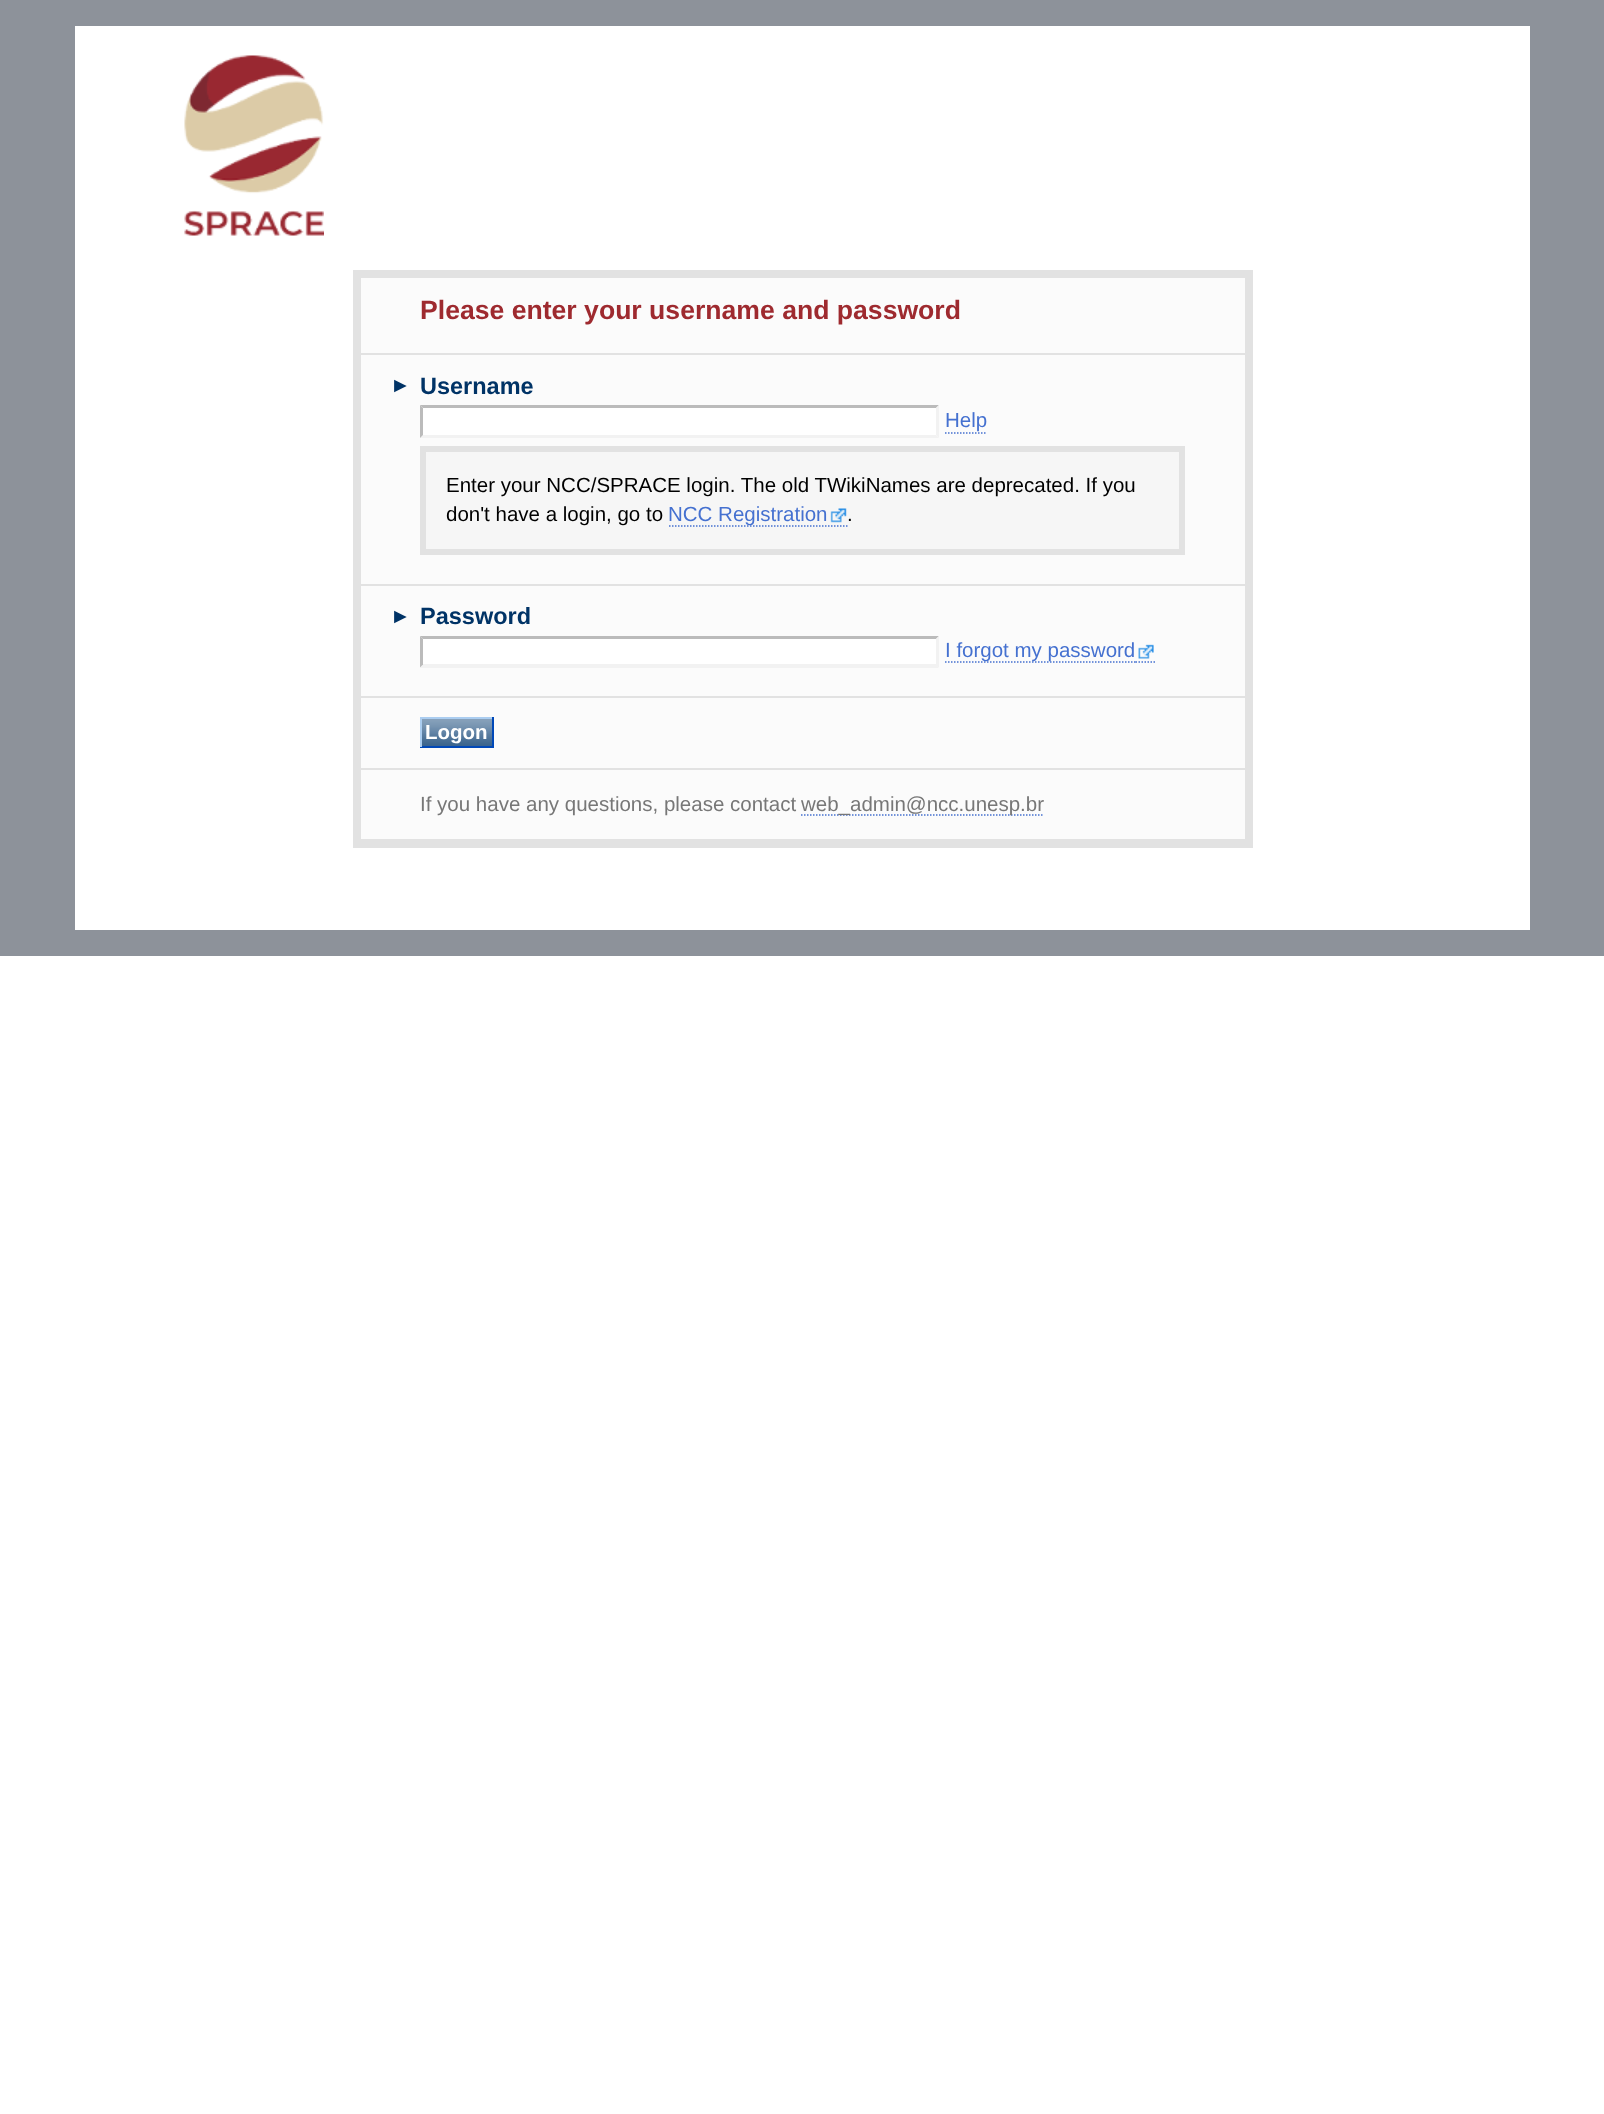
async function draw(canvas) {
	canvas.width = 1604;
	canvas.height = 2114;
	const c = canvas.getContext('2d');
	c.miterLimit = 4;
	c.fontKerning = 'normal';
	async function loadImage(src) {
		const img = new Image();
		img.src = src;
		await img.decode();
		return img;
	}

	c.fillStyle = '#fff';
	c.fillRect(0, 0, 1604, 2114);
	c.fillStyle = '#8d929a';
	c.fillRect(0, 0, 1604, 956);
	c.fillStyle = '#fff';
	c.fillRect(75, 26, 1455, 904);
	c.drawImage(await loadImage('img1.png'), 184, 55, 140, 181);
	c.fillStyle = '#fbfbfb';
	c.fillRect(361, 278, 884, 561);
	c.strokeStyle = '#e2e2e2';
	c.lineWidth = 8;
	c.strokeRect(357, 274, 892, 570);
	c.fillStyle = '#e2e2e2';
	c.fillRect(360, 353, 885, 2);
	c.font = 'bold 26.6px Liberation Sans';
	c.fillStyle = '#9e2a2f';
	c.fillText('Please enter your username and password', 420, 319);
	c.fillStyle = '#e2e2e2';
	c.fillRect(360, 584, 885, 2);
	c.font = '21px Liberation Sans';
	c.fillStyle = '#036';
	c.fillText('►', 390, 392);
	c.font = 'bold 23.5px Liberation Sans';
	c.fillText('Username', 420, 394);
	c.fillStyle = '#fff';
	c.fillRect(420, 405, 519, 33);
	c.fillStyle = '#bbb';
	c.beginPath();
	c.moveTo(420, 405);
	c.lineTo(939, 405);
	c.lineTo(936, 408);
	c.lineTo(423, 408);
	c.closePath();
	c.fill();
	c.fillStyle = '#f2f2f2';
	c.beginPath();
	c.moveTo(939, 405);
	c.lineTo(939, 438);
	c.lineTo(936, 435);
	c.lineTo(936, 408);
	c.closePath();
	c.fill();
	c.beginPath();
	c.moveTo(939, 438);
	c.lineTo(420, 438);
	c.lineTo(423, 435);
	c.lineTo(936, 435);
	c.closePath();
	c.fill();
	c.fillStyle = '#bbb';
	c.beginPath();
	c.moveTo(420, 438);
	c.lineTo(420, 405);
	c.lineTo(423, 408);
	c.lineTo(423, 435);
	c.closePath();
	c.fill();
	c.font = '20.5px Liberation Sans';
	c.fillStyle = '#4571d0';
	c.fillText('Help', 945, 427);
	c.beginPath();
	c.moveTo(945, 433);
	c.lineTo(987, 433);
	c.strokeStyle = '#4571d0';
	c.lineWidth = 1.5;
	c.setLineDash([1.5, 1.5]);
	c.stroke();
	c.fillStyle = '#f6f6f6';
	c.beginPath();
	c.rect(423, 449, 759, 103);
	c.fill();
	c.strokeStyle = '#e2e2e2';
	c.lineWidth = 6;
	c.setLineDash([]);
	c.stroke();
	c.fillStyle = '#000';
	c.fillText('Enter your NCC/SPRACE login. The old TWikiNames are deprecated. If you', 446, 492);
	c.fillText('don\'t have a login, go to', 446, 521);
	c.beginPath();
	c.moveTo(669, 526);
	c.lineTo(828, 526);
	c.strokeStyle = '#4571d0';
	c.lineWidth = 1.5;
	c.setLineDash([1.5, 1.5]);
	c.stroke();
	c.fillStyle = '#4571d0';
	c.fillText('NCC Registration', 668, 521);
	c.beginPath();
	c.moveTo(828, 526);
	c.lineTo(847.5, 526);
	c.stroke();
	c.drawImage(await loadImage('img2.png'), 830, 508, 17, 15);
	c.fillStyle = '#000';
	c.fillText('.', 847, 521);
	c.fillStyle = '#e2e2e2';
	c.fillRect(360, 696, 885, 2);
	c.font = '21px Liberation Sans';
	c.fillStyle = '#036';
	c.fillText('►', 390, 623);
	c.font = 'bold 23.5px Liberation Sans';
	c.fillText('Password', 420, 624);
	c.fillStyle = '#fff';
	c.fillRect(420, 636, 519, 32);
	c.fillStyle = '#bbb';
	c.beginPath();
	c.moveTo(420, 636);
	c.lineTo(939, 636);
	c.lineTo(936, 639);
	c.lineTo(423, 639);
	c.closePath();
	c.fill();
	c.fillStyle = '#f2f2f2';
	c.beginPath();
	c.moveTo(939, 636);
	c.lineTo(939, 667.5);
	c.lineTo(936, 664.5);
	c.lineTo(936, 639);
	c.closePath();
	c.fill();
	c.beginPath();
	c.moveTo(939, 668);
	c.lineTo(420, 668);
	c.lineTo(423, 664);
	c.lineTo(936, 664);
	c.closePath();
	c.fill();
	c.fillStyle = '#bbb';
	c.beginPath();
	c.moveTo(420, 667.5);
	c.lineTo(420, 636);
	c.lineTo(423, 639);
	c.lineTo(423, 664.5);
	c.closePath();
	c.fill();
	c.beginPath();
	c.moveTo(945, 662);
	c.lineTo(1135.5, 662);
	c.stroke();
	c.font = '20.5px Liberation Sans';
	c.fillStyle = '#4571d0';
	c.fillText('I forgot my password', 945, 657);
	c.beginPath();
	c.moveTo(1135.5, 662);
	c.lineTo(1155, 662);
	c.stroke();
	c.drawImage(await loadImage('img3.png'), 1138, 644, 16, 15);
	c.fillStyle = '#e2e2e2';
	c.fillRect(360, 768, 885, 2);
	c.drawImage(await loadImage('img4.png'), 422, 719, 70, 27);
	for (const [x, y, w, h, color] of [
		[420, 717, 74, 2, '#abcdf0'],
		[492, 717, 2, 30, '#0048b8'],
		[420, 746, 74, 2, '#0048b8'],
		[420, 717, 2, 30, '#abcdf0'],
	]) {
		c.fillStyle = color;
		c.fillRect(x, y, w, h);
	}
	c.font = 'bold 20.5px Liberation Sans';
	c.fillStyle = '#fff';
	c.fillText('Logon', 425, 739);
	c.fillStyle = '#e2e2e2';
	c.fillRect(360, 839, 885, 1);
	c.font = '20.5px Liberation Sans';
	c.fillStyle = '#777';
	c.fillText('If you have any questions, please contact', 420, 811);
	c.beginPath();
	c.moveTo(801, 815);
	c.lineTo(1042.5, 815);
	c.stroke();
	c.fillText('web_admin@ncc.unesp.br', 801, 811);
}

draw(document.querySelector('canvas'));
